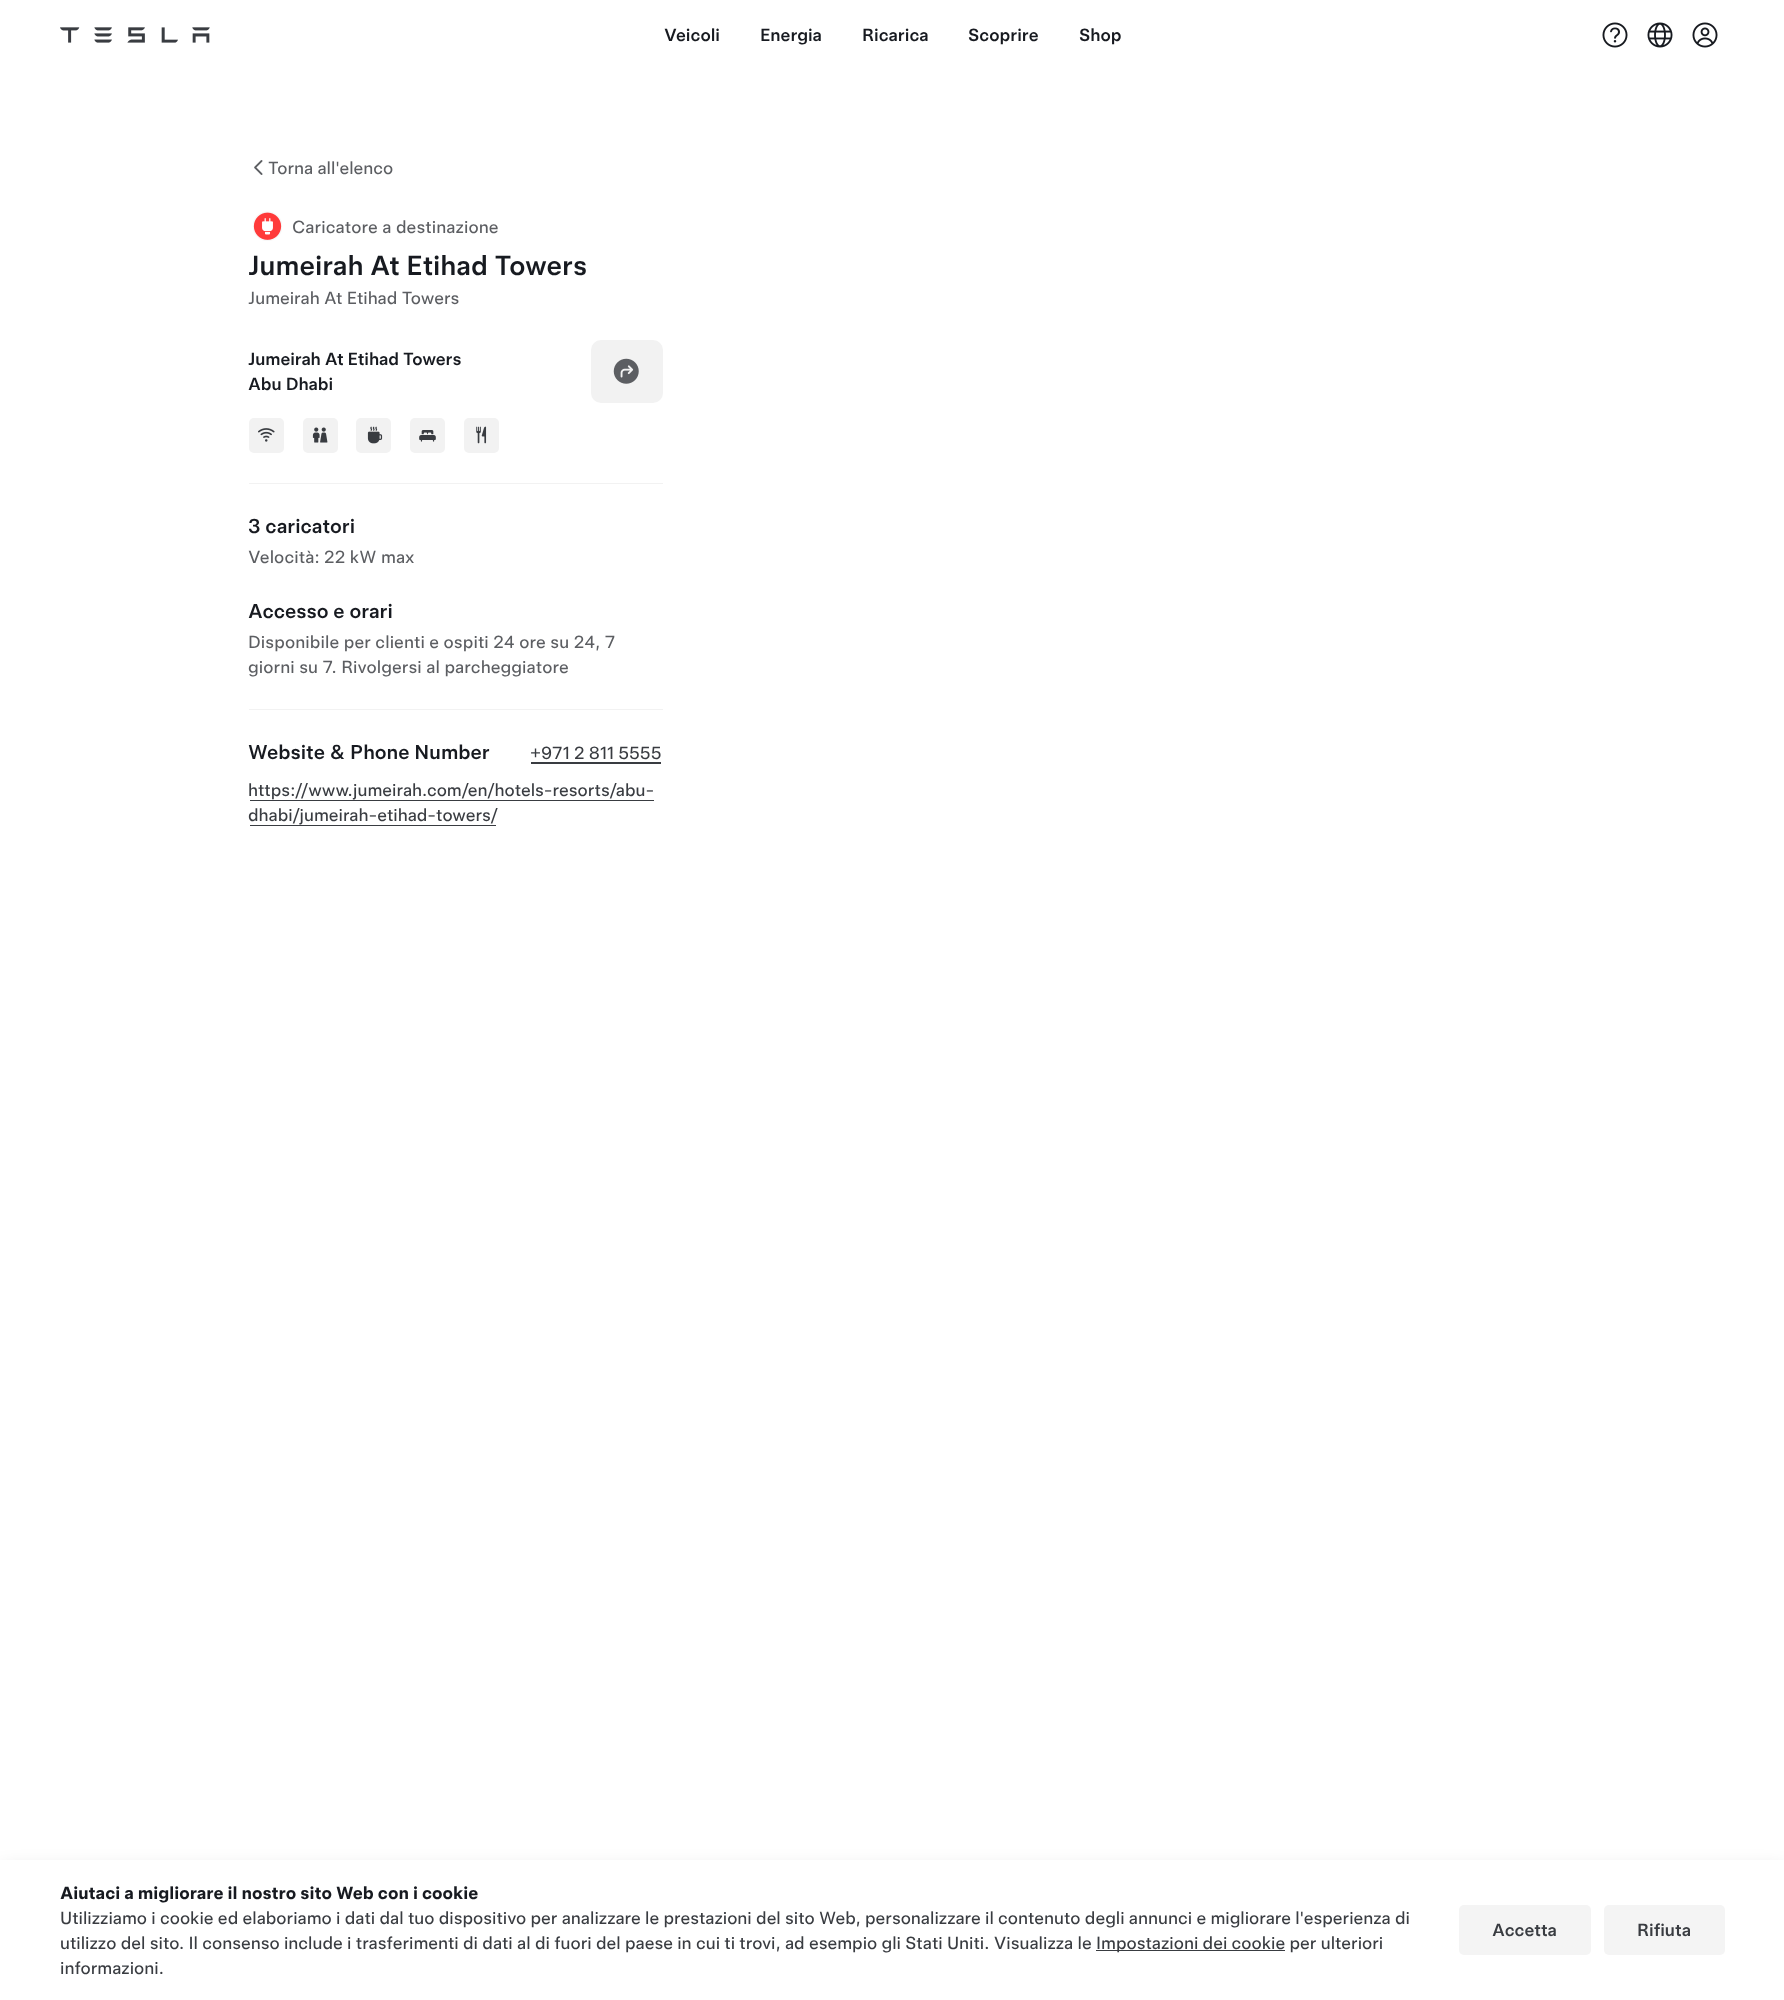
async function draw(canvas) {
	canvas.width = 1784;
	canvas.height = 2000;
	const c = canvas.getContext('2d');
	c.miterLimit = 4;
	c.fontKerning = 'normal';
	async function loadImage(src) {
		const img = new Image();
		img.src = src;
		await img.decode();
		return img;
	}

	c.fillStyle = '#fff';
	c.fillRect(0, 0, 1784, 2000);
	c.drawImage(await loadImage('img1.png'), 60, 27, 150, 16);
	c.font = '500 17.5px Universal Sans';
	c.fillStyle = '#171a20';
	for (const [text, x, y] of [
		['Veicoli', 664, 41],
		['Energia', 760, 41],
		['Ricarica', 862, 41],
		['Scoprire', 968, 41],
		['Shop', 1079, 41],
	]) {
		c.fillText(text, x, y);
	}
	c.drawImage(await loadImage('img2.png'), 1602, 22, 26, 26);
	c.drawImage(await loadImage('img3.png'), 1647, 22, 26, 26);
	c.drawImage(await loadImage('img4.png'), 1692, 22, 26, 26);
	c.drawImage(await loadImage('img5.png'), 254, 160, 9, 15);
	c.font = '17.5px Universal Sans';
	c.fillStyle = '#5c5e62';
	c.fillText('Torna all\'elenco', 268, 174);
	c.drawImage(await loadImage('img6.png'), 253, 211, 29, 30);
	c.letterSpacing = '0.1px';
	c.fillText('Caricatore a destinazione', 292, 233);
	c.letterSpacing = '0px';
	c.font = '500 27.5px Universal Sans';
	c.fillStyle = '#171a20';
	c.fillText('Jumeirah At Etihad Towers', 248, 275);
	c.font = '17.5px Universal Sans';
	c.fillStyle = '#5c5e62';
	c.fillText('Jumeirah At Etihad Towers', 248, 304);
	c.letterSpacing = '-0.1px';
	c.font = '500 17.5px Universal Sans';
	c.fillStyle = '#171a20';
	c.fillText('Jumeirah At Etihad Towers', 248, 365);
	c.fillText('Abu Dhabi', 248, 390);
	c.fillStyle = '#f2f2f2';
	c.beginPath();
	c.roundRect(591, 340, 72, 63, 10);
	c.fill();
	c.drawImage(await loadImage('img7.png'), 613, 358, 26, 26);
	c.beginPath();
	c.roundRect(249, 418, 35, 35, 5);
	c.fill();
	c.drawImage(await loadImage('img8.png'), 258, 428, 17, 14);
	c.beginPath();
	c.roundRect(303, 418, 35, 35, 5);
	c.fill();
	c.drawImage(await loadImage('img9.png'), 312, 427, 16, 16);
	c.beginPath();
	c.roundRect(356, 418, 35, 35, 5);
	c.fill();
	c.drawImage(await loadImage('img10.png'), 367, 426, 16, 18);
	c.beginPath();
	c.roundRect(410, 418, 35, 35, 5);
	c.fill();
	c.drawImage(await loadImage('img11.png'), 419, 430, 17, 12);
	c.beginPath();
	c.roundRect(464, 418, 35, 35, 5);
	c.fill();
	c.drawImage(await loadImage('img12.png'), 476, 426, 11, 18);
	c.fillRect(249, 483, 414, 1);
	c.letterSpacing = '0px';
	c.font = '500 20px Universal Sans';
	c.fillStyle = '#171a20';
	c.fillText('3 caricatori', 248, 533);
	c.letterSpacing = '0.1px';
	c.font = '17.5px Universal Sans';
	c.fillStyle = '#5c5e62';
	c.fillText('Velocità: 22 kW max', 248, 563);
	c.letterSpacing = '0px';
	c.font = '500 20px Universal Sans';
	c.fillStyle = '#171a20';
	c.fillText('Accesso e orari', 248, 618);
	c.letterSpacing = '0.1px';
	c.font = '17.5px Universal Sans';
	c.fillStyle = '#5c5e62';
	c.fillText('Disponibile per clienti e ospiti 24 ore su 24, 7', 248, 648);
	c.fillText('giorni su 7. Rivolgersi al parcheggiatore', 248, 673);
	c.fillStyle = '#f2f2f2';
	c.fillRect(249, 709, 414, 1);
	c.letterSpacing = '0px';
	c.font = '500 20px Universal Sans';
	c.fillStyle = '#171a20';
	c.fillText('Website & Phone Number', 248, 759);
	c.font = '17.5px Universal Sans';
	c.fillStyle = '#393c41';
	c.fillText('+971 2 811 5555', 530, 759);
	c.fillRect(531, 762, 130, 2);
	c.fillText('https://www.jumeirah.com/en/hotels-resorts/abu-', 248, 796);
	c.fillRect(250, 800, 404, 1);
	c.fillText('dhabi/jumeirah-etihad-towers/', 248, 821);
	c.fillRect(250, 825, 246, 1);
	c.fillStyle = '#00000029';
	c.filter = 'blur(10px)';
	c.beginPath();
	c.rect(0, 1870, 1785, 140);
	c.fill();
	c.filter = 'none';
	c.fillStyle = '#fff';
	c.fillRect(0, 1860, 1784, 140);
	c.font = 'bold 17.5px Universal Sans';
	c.fillStyle = '#171a20';
	c.fillText('Aiutaci a migliorare il nostro sito Web con i cookie', 60, 1899);
	c.font = '17.5px Universal Sans';
	c.fillStyle = '#393c41';
	c.fillText('Utilizziamo i cookie ed elaboriamo i dati dal tuo dispositivo per analizzare le prestazioni del sito Web, personalizzare il contenuto degli annunci e migliorare l\'esperienza di', 60, 1924);
	c.fillText('utilizzo del sito. Il consenso include i trasferimenti di dati al di fuori del paese in cui ti trovi, ad esempio gli Stati Uniti. Visualizza le', 60, 1949);
	c.fillRect(1096, 1950, 189, 1);
	c.fillText('Impostazioni dei cookie per ulteriori', 1096, 1949);
	c.fillText('informazioni.', 60, 1974);
	c.fillStyle = '#f4f4f4';
	c.beginPath();
	c.roundRect(1459, 1905, 132, 50, 5);
	c.fill();
	c.font = '500 17.5px Universal Sans';
	c.fillStyle = '#393c41';
	c.fillText('Accetta', 1492, 1936);
	c.fillStyle = '#f4f4f4';
	c.beginPath();
	c.roundRect(1604, 1905, 121, 50, 5);
	c.fill();
	c.fillStyle = '#393c41';
	c.fillText('Rifiuta', 1637, 1936);
}

draw(document.querySelector('canvas'));
